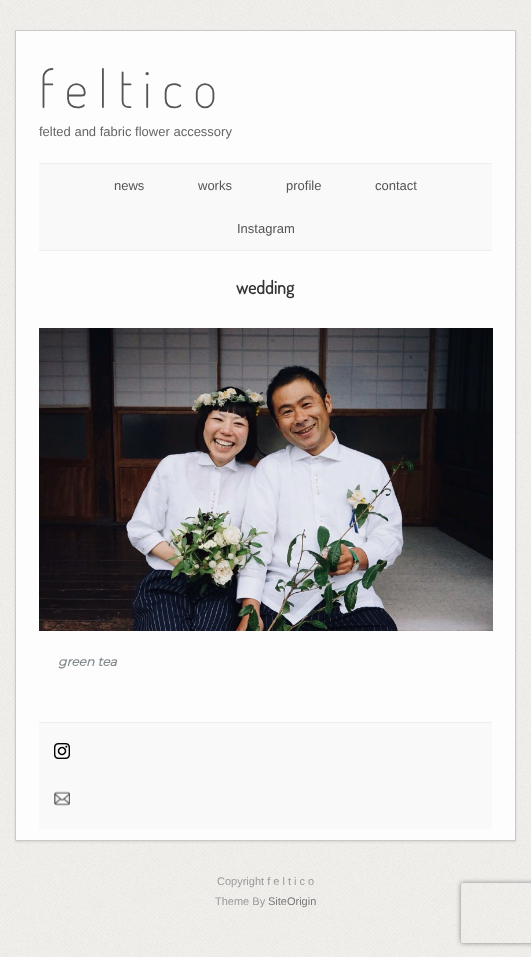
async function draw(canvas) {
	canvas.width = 531;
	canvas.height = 957;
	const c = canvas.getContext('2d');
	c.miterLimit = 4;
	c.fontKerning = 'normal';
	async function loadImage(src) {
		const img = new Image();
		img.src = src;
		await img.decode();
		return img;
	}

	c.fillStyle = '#fff';
	c.fillRect(0, 0, 531, 957);
	c.drawImage(await loadImage('img1.png'), 0, 0, 531, 957);
	c.fillStyle = '#0000001a';
	c.filter = 'blur(1px)';
	c.beginPath();
	c.rect(15, 31, 501, 811);
	c.fill();
	c.filter = 'none';
	c.fillStyle = '#fdfdfd';
	c.beginPath();
	c.rect(15.5, 30.5, 500, 810);
	c.fill();
	c.strokeStyle = '#cbc9c7';
	c.stroke();
	c.font = '200 52px Dosis';
	c.fillStyle = '#555';
	c.fillText('f e l t i c o', 39, 108);
	c.font = '13px Liberation Sans';
	c.fillStyle = '#666';
	c.fillText('felted and fabric flower accessory', 39, 136);
	for (const [x, y, w, h, color] of [
		[39, 164, 453, 86, '#f9f9f9'],
		[39, 163, 453, 1, '#eee'],
		[39, 250, 453, 1, '#eee'],
	]) {
		c.fillStyle = color;
		c.fillRect(x, y, w, h);
	}
	c.fillStyle = '#555';
	for (const [text, x, y] of [
		['news', 114, 190],
		['works', 198, 190],
		['profile', 286, 190],
		['contact', 375, 190],
		['Instagram', 237, 233],
	]) {
		c.fillText(text, x, y);
	}
	c.font = 'bold 18px Dosis';
	c.fillStyle = '#333';
	c.fillText('wedding', 236, 294);
	c.drawImage(await loadImage('img2.png'), 39, 328, 454, 303);
	c.font = 'italic bold 12.25px Montserrat';
	c.fillStyle = '#81898d';
	c.fillText('green tea', 58, 666);
	c.fillStyle = '#f9f9f9';
	c.fillRect(39, 723, 453, 106);
	c.fillStyle = '#eee';
	c.fillRect(39, 722, 453, 1);
	c.drawImage(await loadImage('img3.png'), 54, 743, 16, 16);
	c.drawImage(await loadImage('img4.png'), 54, 791, 16, 15);
	c.font = '11px Liberation Sans';
	c.fillStyle = '#999';
	c.fillText('Copyright f e l t i c o', 217, 885);
	c.fillText('Theme By', 215, 905);
	c.fillStyle = '#777';
	c.fillText('SiteOrigin', 268, 905);
	c.save();
	c.beginPath();
	c.moveTo(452, 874);
	c.lineTo(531, 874);
	c.lineTo(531, 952);
	c.lineTo(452, 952);
	c.closePath();
	c.moveTo(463, 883);
	c.lineTo(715, 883);
	c.bezierCurveTo(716, 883, 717, 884, 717, 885);
	c.lineTo(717, 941);
	c.bezierCurveTo(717, 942, 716, 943, 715, 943);
	c.lineTo(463, 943);
	c.bezierCurveTo(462, 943, 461, 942, 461, 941);
	c.lineTo(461, 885);
	c.bezierCurveTo(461, 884, 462, 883, 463, 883);
	c.closePath();
	c.clip('evenodd');
	c.fillStyle = '#808080';
	c.filter = 'blur(2.5px)';
	c.beginPath();
	c.roundRect(461, 883, 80, 60, 2);
	c.fill();
	c.filter = 'none';
	c.restore();
}

draw(document.querySelector('canvas'));
